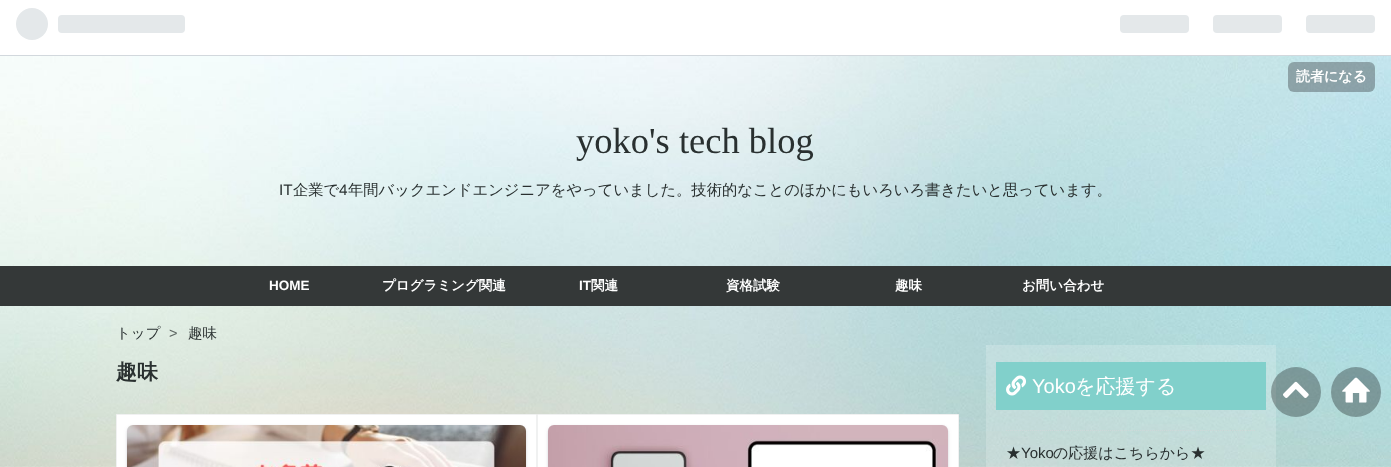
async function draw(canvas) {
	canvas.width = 1391;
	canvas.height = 467;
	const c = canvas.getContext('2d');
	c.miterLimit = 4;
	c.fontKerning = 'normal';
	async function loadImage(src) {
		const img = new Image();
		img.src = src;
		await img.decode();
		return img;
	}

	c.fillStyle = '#fff';
	c.fillRect(0, 0, 1391, 467);
	c.drawImage(await loadImage('img1.png'), 0, 56, 1391, 411);
	c.fillStyle = '#d2d8dd';
	c.fillRect(0, 55, 1391, 1);
	c.drawImage(await loadImage('img2.png'), 16, 8, 169, 32);
	c.drawImage(await loadImage('img3.png'), 1120, 15, 255, 18);
	c.fillStyle = '#3d424566';
	c.beginPath();
	c.roundRect(1288, 62, 87, 30, 6);
	c.fill();
	c.font = 'bold 14px WenQuanYi Zen Hei';
	c.fillStyle = '#fff';
	c.fillText('読者になる', 1296, 81);
	c.font = '36.5px Liberation Serif';
	c.fillStyle = '#293030';
	c.fillText('yoko\'s tech blog', 576, 153);
	c.font = '15.3px Liberation Sans';
	c.fillText('IT', 279, 195);
	c.font = '500 15.3px WenQuanYi Zen Hei';
	c.fillText('企業で', 293, 195);
	c.font = '15.3px Liberation Sans';
	c.fillText('4', 339, 195);
	c.font = '500 15.3px WenQuanYi Zen Hei';
	c.fillText('年間バックエンドエンジニアをやっていました。技術的なことのほかにもいろいろ書きたいと思っています。', 348, 195);
	c.fillStyle = '#343838';
	c.fillRect(0, 266, 1391, 40);
	c.font = 'bold 13.5px Liberation Sans';
	c.fillStyle = '#fff';
	c.fillText('HOME', 269, 290);
	c.font = 'bold 13.5px WenQuanYi Zen Hei';
	c.fillText('プログラミング関連', 382, 290);
	c.font = 'bold 13.5px Liberation Sans';
	c.fillText('IT', 579, 290);
	c.font = 'bold 13.5px WenQuanYi Zen Hei';
	for (const [text, x, y] of [
		['関連', 591, 290],
		['資格試験', 726, 290],
		['趣味', 895, 290],
		['お問い合わせ', 1022, 290],
	]) {
		c.fillText(text, x, y);
	}
	c.font = '500 14.5px WenQuanYi Zen Hei';
	c.fillStyle = '#293030';
	c.fillText('トップ', 116, 338);
	c.font = '14.5px Liberation Sans';
	c.fillStyle = '#606865';
	c.fillText('>', 169, 338);
	c.font = '500 14.5px WenQuanYi Zen Hei';
	c.fillStyle = '#293030';
	c.fillText('趣味', 188, 338);
	c.font = 'bold 21px WenQuanYi Zen Hei';
	c.fillText('趣味', 116, 379);
	c.fillStyle = '#fff';
	c.beginPath();
	c.rect(116.5, 414.5, 420, 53);
	c.fill();
	c.strokeStyle = '#f0f1f1';
	c.stroke();
	c.fillStyle = '#00000033';
	c.filter = 'blur(1.5px)';
	c.beginPath();
	c.roundRect(128, 427, 397, 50, 5);
	c.fill();
	c.filter = 'none';
	c.fillStyle = '#32325d26';
	c.filter = 'blur(2.5px)';
	c.beginPath();
	c.roundRect(128, 428, 397, 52, 5);
	c.fill();
	c.filter = 'none';
	c.drawImage(await loadImage('img4.png'), 127, 425, 399, 42);
	c.fillStyle = '#fff';
	c.beginPath();
	c.rect(537.5, 414.5, 421, 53);
	c.fill();
	c.stroke();
	c.fillStyle = '#00000033';
	c.filter = 'blur(1.5px)';
	c.beginPath();
	c.roundRect(549, 427, 398, 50, 5);
	c.fill();
	c.filter = 'none';
	c.fillStyle = '#32325d26';
	c.filter = 'blur(2.5px)';
	c.beginPath();
	c.roundRect(549, 428, 398, 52, 5);
	c.fill();
	c.filter = 'none';
	c.drawImage(await loadImage('img5.png'), 548, 425, 400, 42);
	c.fillStyle = '#ffffff33';
	c.fillRect(986, 345, 290, 122);
	c.fillStyle = '#81d0cb';
	c.fillRect(996, 362, 270, 48);
	c.drawImage(await loadImage('img6.png'), 1006, 375, 20, 21);
	c.font = '20px Liberation Sans';
	c.fillStyle = '#fff';
	c.fillText('Yoko', 1032, 393);
	c.font = '500 20px WenQuanYi Zen Hei';
	c.fillText('を応援する', 1075, 393);
	c.beginPath();
	c.moveTo(1006, 430.5);
	c.lineTo(1256, 430.5);
	c.strokeStyle = '#cfd8d8';
	c.setLineDash([1, 1]);
	c.stroke();
	c.font = '500 15px WenQuanYi Zen Hei';
	c.fillStyle = '#293030';
	c.fillText('★', 1006, 458);
	c.font = '15px Liberation Sans';
	c.fillText('Yoko', 1021, 458);
	c.font = '500 15px WenQuanYi Zen Hei';
	c.fillText('の応援はこちらから★', 1053, 458);
	c.fillStyle = '#0000004d';
	c.beginPath();
	c.arc(1296, 392, 25, 0, 2 * Math.PI);
	c.fill();
	c.drawImage(await loadImage('img7.png'), 1283, 381, 26, 17);
	c.beginPath();
	c.arc(1356, 392, 25, 0, 2 * Math.PI);
	c.fill();
	c.drawImage(await loadImage('img8.png'), 1342, 377, 28, 26);
}

draw(document.querySelector('canvas'));
